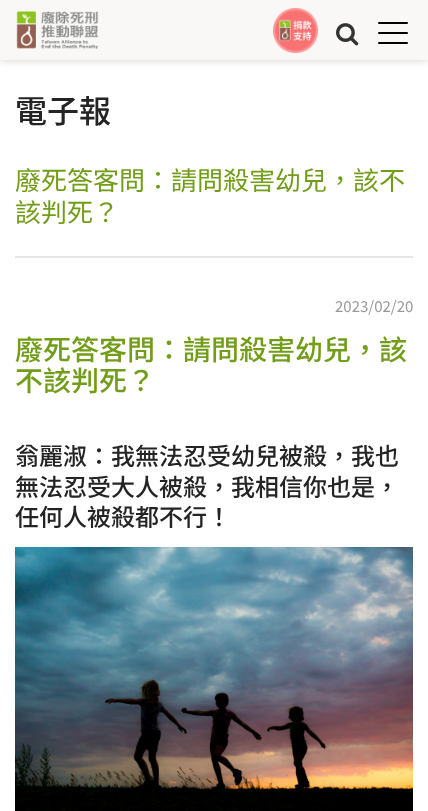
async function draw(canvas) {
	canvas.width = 428;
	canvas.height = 811;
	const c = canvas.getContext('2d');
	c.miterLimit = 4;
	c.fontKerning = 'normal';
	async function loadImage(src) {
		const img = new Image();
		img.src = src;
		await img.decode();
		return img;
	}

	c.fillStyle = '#fff';
	c.fillRect(0, 0, 428, 811);
	c.fillStyle = '#cfcfcf';
	c.filter = 'blur(4px)';
	c.beginPath();
	c.rect(0, 0, 428, 60);
	c.fill();
	c.filter = 'none';
	c.fillStyle = '#f9f8f7';
	c.fillRect(0, 0, 428, 60);
	c.drawImage(await loadImage('img1.png'), 16, 11, 83, 39);
	c.drawImage(await loadImage('img2.png'), 273, 8, 45, 45);
	c.drawImage(await loadImage('img3.png'), 336, 23, 23, 23);
	c.fillStyle = '#000';
	c.beginPath();
	c.roundRect(378, 42, 30, 2, 1);
	c.fill();
	c.beginPath();
	c.roundRect(378, 22, 30, 2, 1);
	c.fill();
	c.beginPath();
	c.roundRect(378, 32, 30, 2, 1);
	c.fill();
	c.font = '500 32px Noto Sans TC';
	c.fillStyle = '#242424';
	c.fillText('電子報', 15, 123);
	c.font = '26px Noto Sans TC';
	c.fillStyle = '#729d19';
	c.fillText('廢死答客問：請問殺害幼兒，該不', 15, 190);
	c.fillText('該判死？', 15, 222);
	c.fillStyle = '#e6e6e6';
	c.fillRect(15, 256, 398, 2);
	c.font = '15px Noto Sans TC';
	c.fillStyle = '#999';
	c.fillText('2023/02/20', 335, 312);
	c.font = '500 28px Noto Sans TC';
	c.fillStyle = '#729d19';
	c.fillText('廢死答客問：請問殺害幼兒，該', 15, 360);
	c.fillText('不該判死？', 15, 391);
	c.font = '500 24px Noto Sans TC';
	c.fillStyle = '#242424';
	for (const [text, x, y] of [
		['翁麗淑：我無法忍受幼兒被殺，我也', 15, 465],
		['無法忍受大人被殺，我相信你也是，', 15, 496],
		['任何人被殺都不行！', 15, 526],
	]) {
		c.fillText(text, x, y);
	}
	c.drawImage(await loadImage('img4.png'), 15, 547, 398, 264);
}

draw(document.querySelector('canvas'));
